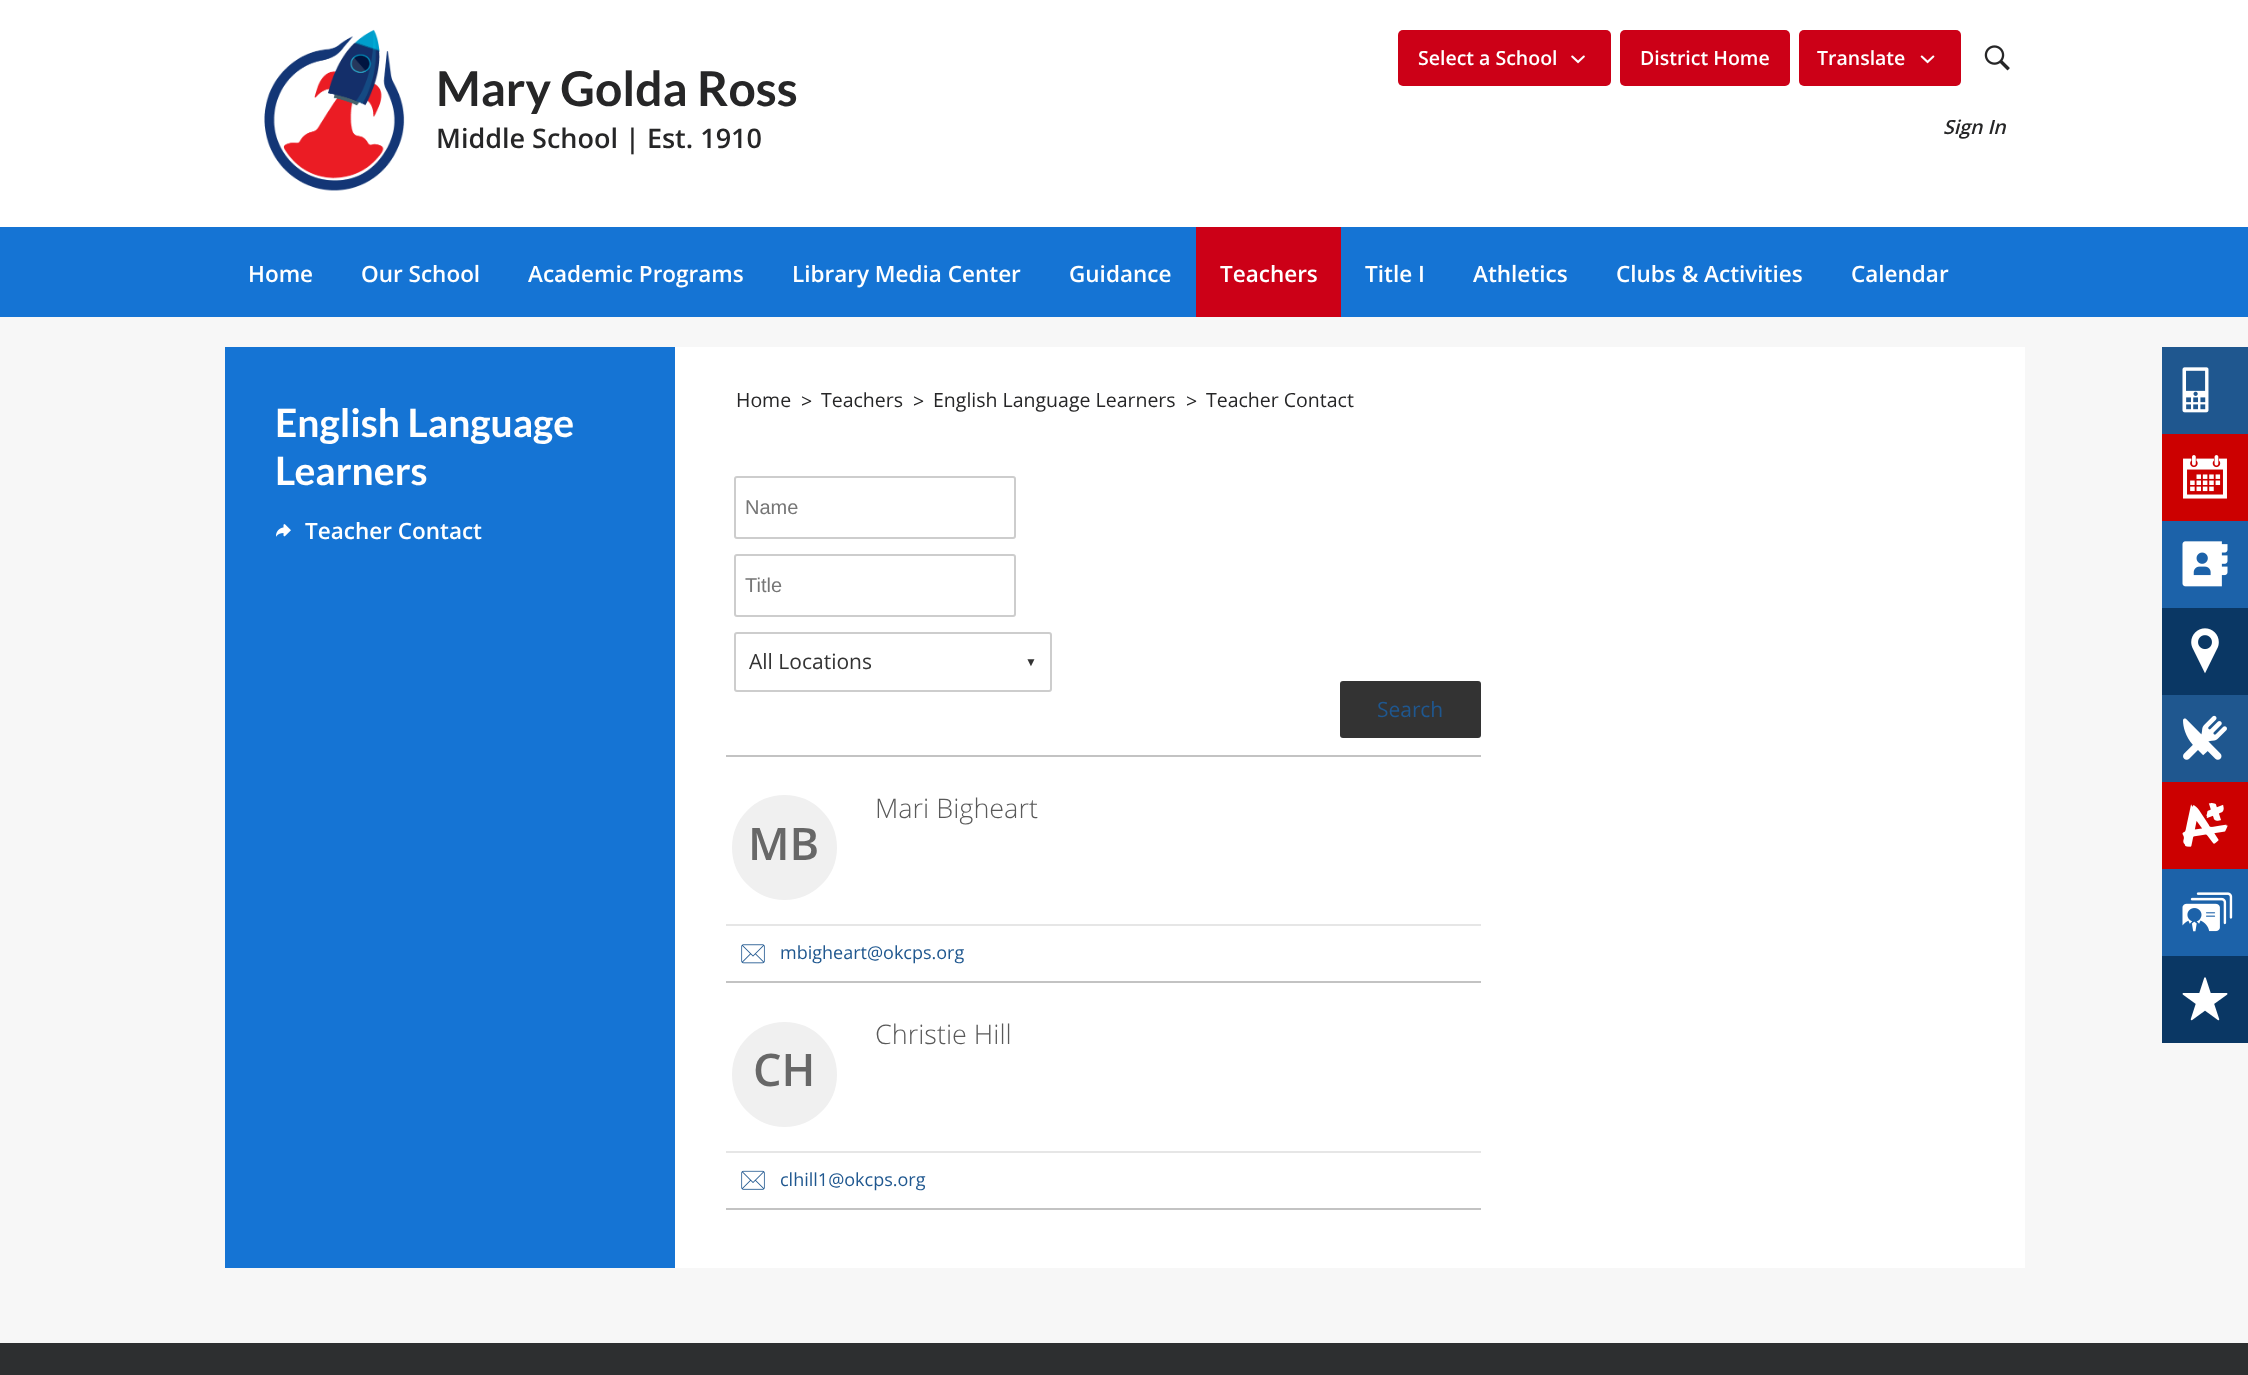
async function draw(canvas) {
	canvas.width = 2248;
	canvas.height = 1375;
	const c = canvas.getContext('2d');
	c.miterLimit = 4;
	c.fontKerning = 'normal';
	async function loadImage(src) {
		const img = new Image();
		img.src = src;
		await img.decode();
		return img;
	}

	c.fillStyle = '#f7f7f7';
	c.fillRect(0, 0, 2248, 1375);
	c.fillStyle = '#fff';
	c.fillRect(0, 0, 2248, 227);
	c.drawImage(await loadImage('img1.png'), 264, 29, 141, 162);
	c.font = 'bold 48px Lato';
	c.fillStyle = '#262627';
	c.fillText('Mary Golda Ross', 436, 106);
	c.font = '600 27px Open Sans';
	c.fillText('Middle School | Est. 1910', 436, 148);
	c.fillStyle = '#cc0017';
	c.beginPath();
	c.roundRect(1398, 30, 213, 56, 5);
	c.fill();
	c.font = '600 19.5px Open Sans';
	c.fillStyle = '#fff';
	c.fillText('Select a School', 1418, 65);
	c.drawImage(await loadImage('img2.png'), 1571, 55, 14, 9);
	c.fillStyle = '#cc0017';
	c.beginPath();
	c.roundRect(1620, 30, 170, 56, 5);
	c.fill();
	c.fillStyle = '#fff';
	c.fillText('District Home', 1640, 65);
	c.fillStyle = '#cc0017';
	c.beginPath();
	c.roundRect(1799, 30, 162, 56, 5);
	c.fill();
	c.fillStyle = '#fff';
	c.fillText('Translate', 1817, 65);
	c.drawImage(await loadImage('img3.png'), 1920, 55, 15, 9);
	c.drawImage(await loadImage('img4.png'), 1984, 45, 26, 26);
	c.font = 'italic 600 19.5px Open Sans';
	c.fillStyle = '#262627';
	c.fillText('Sign In', 1943, 134);
	c.fillStyle = '#1574d4';
	c.fillRect(0, 227, 2248, 90);
	c.font = '600 22.5px Open Sans';
	c.fillStyle = '#fff';
	for (const [text, x, y] of [
		['Home', 248, 282],
		['Our School', 361, 282],
		['Academic Programs', 528, 282],
		['Library Media Center', 792, 282],
		['Guidance', 1069, 282],
	]) {
		c.fillText(text, x, y);
	}
	c.fillStyle = '#cc0017';
	c.fillRect(1196, 227, 145, 90);
	c.fillStyle = '#fff';
	for (const [text, x, y] of [
		['Teachers', 1220, 282],
		['Title I', 1365, 282],
		['Athletics', 1473, 282],
		['Clubs & Activities', 1616, 282],
		['Calendar', 1851, 282],
	]) {
		c.fillText(text, x, y);
	}
	c.fillRect(675, 347, 1350, 921);
	c.fillStyle = '#1574d4';
	c.fillRect(225, 347, 450, 921);
	c.font = '19.5px Open Sans';
	c.fillStyle = '#262627';
	for (const [text, x, y] of [
		['Home', 736, 407],
		['>', 801, 408],
		['Teachers', 821, 407],
		['>', 913, 408],
		['English Language Learners', 933, 407],
		['>', 1186, 408],
		['Teacher Contact', 1206, 407],
	]) {
		c.fillText(text, x, y);
	}
	c.beginPath();
	c.roundRect(735, 477, 280, 61, 2);
	c.strokeStyle = '#cdcdcd';
	c.lineWidth = 2;
	c.stroke();
	c.font = '20px Liberation Sans';
	c.fillStyle = '#767676';
	c.fillText('Name', 745, 514);
	c.beginPath();
	c.roundRect(735, 555, 280, 61, 2);
	c.stroke();
	c.fillText('Title', 745, 592);
	c.beginPath();
	c.roundRect(735, 633, 316, 58, 2);
	c.stroke();
	c.font = '21px Open Sans';
	c.fillStyle = '#333';
	c.fillText('All Locations', 749, 669);
	c.font = '12px Liberation Sans';
	c.fillText('▼', 1025, 666);
	c.beginPath();
	c.roundRect(1340, 681, 141, 57, 3);
	c.fill();
	c.font = '21px "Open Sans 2"';
	c.fillStyle = '#1f578f';
	c.fillText('Search', 1377, 717);
	c.fillStyle = '#c3c3c3';
	c.fillRect(726, 755, 755, 2);
	c.fillRect(726, 981, 755, 2);
	c.font = '300 27px Open Sans';
	c.fillStyle = '#595959';
	c.fillText('Mari Bigheart', 875, 818);
	c.fillStyle = '#f0f0f0';
	c.beginPath();
	c.arc(784.5, 847.5, 55.5, 0, 2 * Math.PI);
	c.fill();
	c.strokeStyle = '#fff';
	c.lineWidth = 6;
	c.stroke();
	c.font = '600 45px "Open Sans 2"';
	c.fillStyle = '#676767';
	c.fillText('MB', 748, 860);
	c.fillStyle = '#e6e6e6';
	c.fillRect(726, 924, 755, 2);
	c.drawImage(await loadImage('img5.png'), 741, 944, 24, 20);
	c.font = '18px Open Sans';
	c.fillStyle = '#1f578f';
	c.fillText('mbigheart@okcps.org', 780, 959);
	c.fillStyle = '#c3c3c3';
	c.fillRect(726, 1208, 755, 2);
	c.font = '300 27px Open Sans';
	c.fillStyle = '#595959';
	c.fillText('Christie Hill', 875, 1044);
	c.fillStyle = '#f0f0f0';
	c.beginPath();
	c.arc(784.5, 1074.5, 55.5, 0, 2 * Math.PI);
	c.fill();
	c.stroke();
	c.font = '600 45px "Open Sans 2"';
	c.fillStyle = '#676767';
	c.fillText('CH', 753, 1086);
	c.fillStyle = '#e6e6e6';
	c.fillRect(726, 1151, 755, 2);
	c.drawImage(await loadImage('img6.png'), 741, 1170, 24, 20);
	c.font = '18px Open Sans';
	c.fillStyle = '#1f578f';
	c.fillText('clhill1@okcps.org', 780, 1186);
	c.font = 'bold 39px Lato';
	c.fillStyle = '#fff';
	c.fillText('English Language', 275, 437);
	c.fillText('Learners', 275, 485);
	c.drawImage(await loadImage('img7.png'), 276, 524, 15, 13);
	c.font = '600 22.5px Open Sans';
	c.fillText('Teacher Contact', 305, 539);
	c.fillStyle = '#1f578f';
	c.fillRect(2162, 347, 86, 87);
	c.drawImage(await loadImage('img8.png'), 2182, 367, 27, 46);
	c.fillStyle = '#c00';
	c.fillRect(2162, 434, 86, 87);
	c.drawImage(await loadImage('img9.png'), 2183, 455, 44, 44);
	c.fillStyle = '#1c62a9';
	c.fillRect(2162, 521, 86, 87);
	c.drawImage(await loadImage('img10.png'), 2182, 541, 46, 46);
	c.fillStyle = '#0a3764';
	c.fillRect(2162, 608, 86, 87);
	c.drawImage(await loadImage('img11.png'), 2191, 628, 28, 46);
	c.fillStyle = '#1f578f';
	c.fillRect(2162, 695, 86, 87);
	c.drawImage(await loadImage('img12.png'), 2183, 715, 44, 45);
	c.fillStyle = '#c00';
	c.fillRect(2162, 782, 86, 87);
	c.drawImage(await loadImage('img13.png'), 2182, 802, 46, 45);
	c.fillStyle = '#1c62a9';
	c.fillRect(2162, 869, 86, 87);
	c.drawImage(await loadImage('img14.png'), 2182, 892, 51, 40);
	c.fillStyle = '#0a3764';
	c.fillRect(2162, 956, 86, 87);
	c.drawImage(await loadImage('img15.png'), 2182, 977, 46, 44);
	c.fillStyle = '#2d2f30';
	c.fillRect(0, 1343, 2248, 32);
}

draw(document.querySelector('canvas'));
